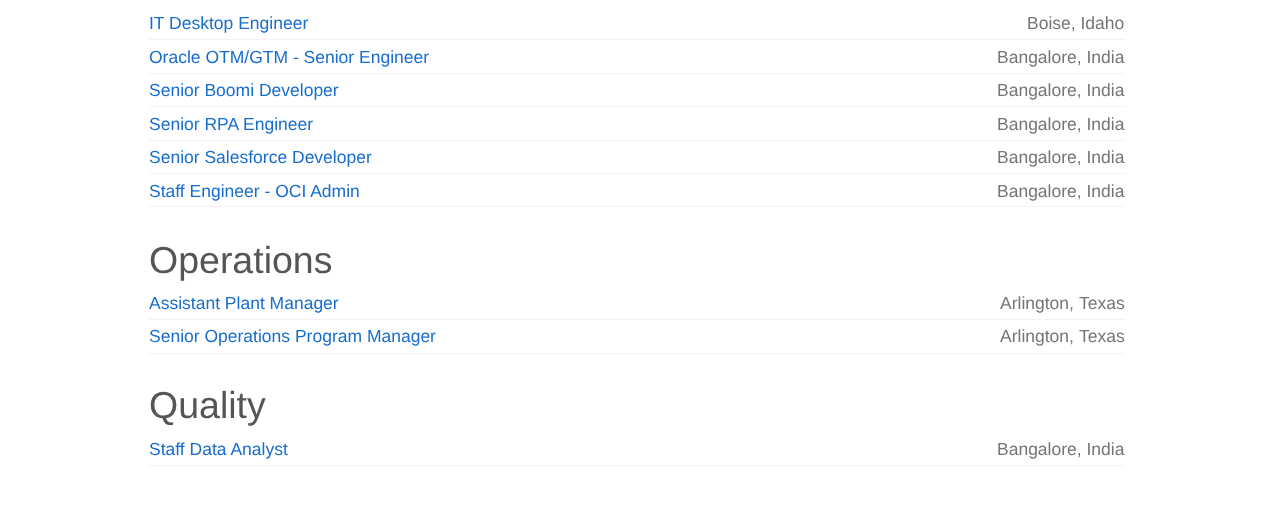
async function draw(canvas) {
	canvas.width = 1273;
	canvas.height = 510;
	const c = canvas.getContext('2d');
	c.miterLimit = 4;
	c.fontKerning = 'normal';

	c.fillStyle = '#fff';
	c.fillRect(0, 0, 1273, 510);
	c.font = '17.5px Liberation Sans';
	c.fillStyle = '#176dcf';
	c.fillText('IT Desktop Engineer', 149, 29);
	c.fillStyle = '#f2f2f2';
	c.fillRect(149, 39, 976, 1);
	c.fillStyle = '#757575';
	c.fillText('Boise, Idaho', 1027, 29);
	c.fillStyle = '#176dcf';
	c.fillText('Oracle OTM/GTM - Senior Engineer', 149, 63);
	c.fillStyle = '#f2f2f2';
	c.fillRect(149, 73, 976, 1);
	c.fillStyle = '#757575';
	c.fillText('Bangalore, India', 997, 63);
	c.fillStyle = '#176dcf';
	c.fillText('Senior Boomi Developer', 149, 96);
	c.fillStyle = '#f2f2f2';
	c.fillRect(149, 106, 976, 1);
	c.fillStyle = '#757575';
	c.fillText('Bangalore, India', 997, 96);
	c.fillStyle = '#176dcf';
	c.fillText('Senior RPA Engineer', 149, 130);
	c.fillStyle = '#f2f2f2';
	c.fillRect(149, 140, 976, 1);
	c.fillStyle = '#757575';
	c.fillText('Bangalore, India', 997, 130);
	c.fillStyle = '#176dcf';
	c.fillText('Senior Salesforce Developer', 149, 163);
	c.fillStyle = '#f2f2f2';
	c.fillRect(149, 173, 976, 1);
	c.fillStyle = '#757575';
	c.fillText('Bangalore, India', 997, 163);
	c.fillStyle = '#176dcf';
	c.fillText('Staff Engineer - OCI Admin', 149, 197);
	c.fillStyle = '#f2f2f2';
	c.fillRect(149, 206, 976, 1);
	c.fillStyle = '#757575';
	c.fillText('Bangalore, India', 997, 197);
	c.font = '37.5px Liberation Sans';
	c.fillStyle = '#555';
	c.fillText('Operations', 149, 273);
	c.font = '17.5px Liberation Sans';
	c.fillStyle = '#176dcf';
	c.fillText('Assistant Plant Manager', 149, 309);
	c.fillStyle = '#f2f2f2';
	c.fillRect(149, 319, 976, 1);
	c.fillStyle = '#757575';
	c.fillText('Arlington,', 1000, 309);
	c.fillText('Texas', 1079, 309);
	c.fillStyle = '#176dcf';
	c.fillText('Senior Operations Program Manager', 149, 342);
	c.fillStyle = '#f2f2f2';
	c.fillRect(149, 353, 976, 1);
	c.fillStyle = '#757575';
	c.fillText('Arlington,', 1000, 342);
	c.fillText('Texas', 1079, 342);
	c.font = '37.5px Liberation Sans';
	c.fillStyle = '#555';
	c.fillText('Quality', 149, 418);
	c.font = '17.5px Liberation Sans';
	c.fillStyle = '#176dcf';
	c.fillText('Staff Data Analyst', 149, 455);
	c.fillStyle = '#f2f2f2';
	c.fillRect(149, 465, 976, 1);
	c.fillStyle = '#757575';
	c.fillText('Bangalore, India', 997, 455);
}

draw(document.querySelector('canvas'));
